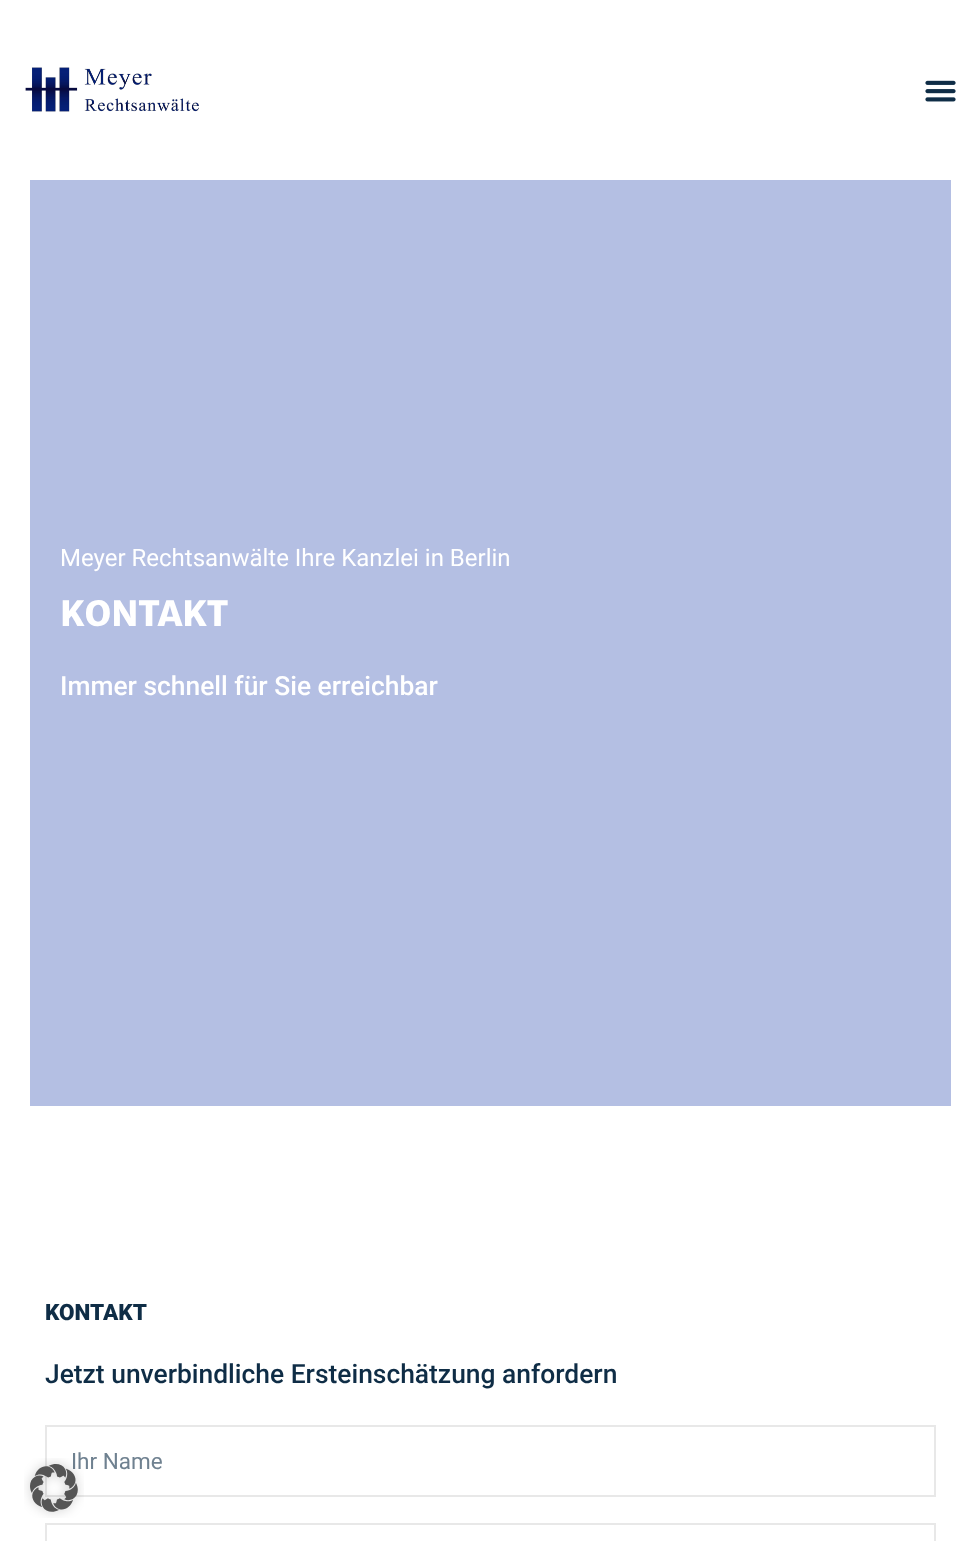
async function draw(canvas) {
	canvas.width = 980;
	canvas.height = 1541;
	const c = canvas.getContext('2d');
	c.miterLimit = 4;
	c.fontKerning = 'normal';
	async function loadImage(src) {
		const img = new Image();
		img.src = src;
		await img.decode();
		return img;
	}

	c.fillStyle = '#fff';
	c.fillRect(0, 0, 980, 1541);
	c.drawImage(await loadImage('img1.png'), 25, 67, 174, 45);
	c.drawImage(await loadImage('img2.png'), 925, 80, 31, 22);
	c.fillStyle = '#b4bfe3';
	c.fillRect(30, 180, 921, 926);
	c.font = '24px Roboto';
	c.fillStyle = '#fff';
	c.fillText('Meyer Rechtsanwälte Ihre Kanzlei in Berlin', 60, 566);
	c.font = '800 34.5px Merriweather Sans';
	c.fillText('KONTAKT', 60, 626);
	c.font = '500 26.4px Roboto';
	c.fillText('Immer schnell für Sie erreichbar', 60, 695);
	c.font = '900 22.5px Roboto';
	c.fillStyle = '#0f2d46';
	c.fillText('KONTAKT', 45, 1320);
	c.font = '500 26.4px Roboto';
	c.fillText('Jetzt unverbindliche Ersteinschätzung anfordern', 45, 1383);
	c.strokeStyle = '#e8e8e8';
	c.lineWidth = 2;
	c.strokeRect(46, 1426, 889, 70);
	c.font = '22.5px Roboto';
	c.fillStyle = '#6f8190';
	c.fillText('Ihr Name', 71, 1469);
	c.strokeRect(46, 1524, 889, 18);
	c.drawImage(await loadImage('img3.png'), 24, 1458, 60, 60);
}

draw(document.querySelector('canvas'));
